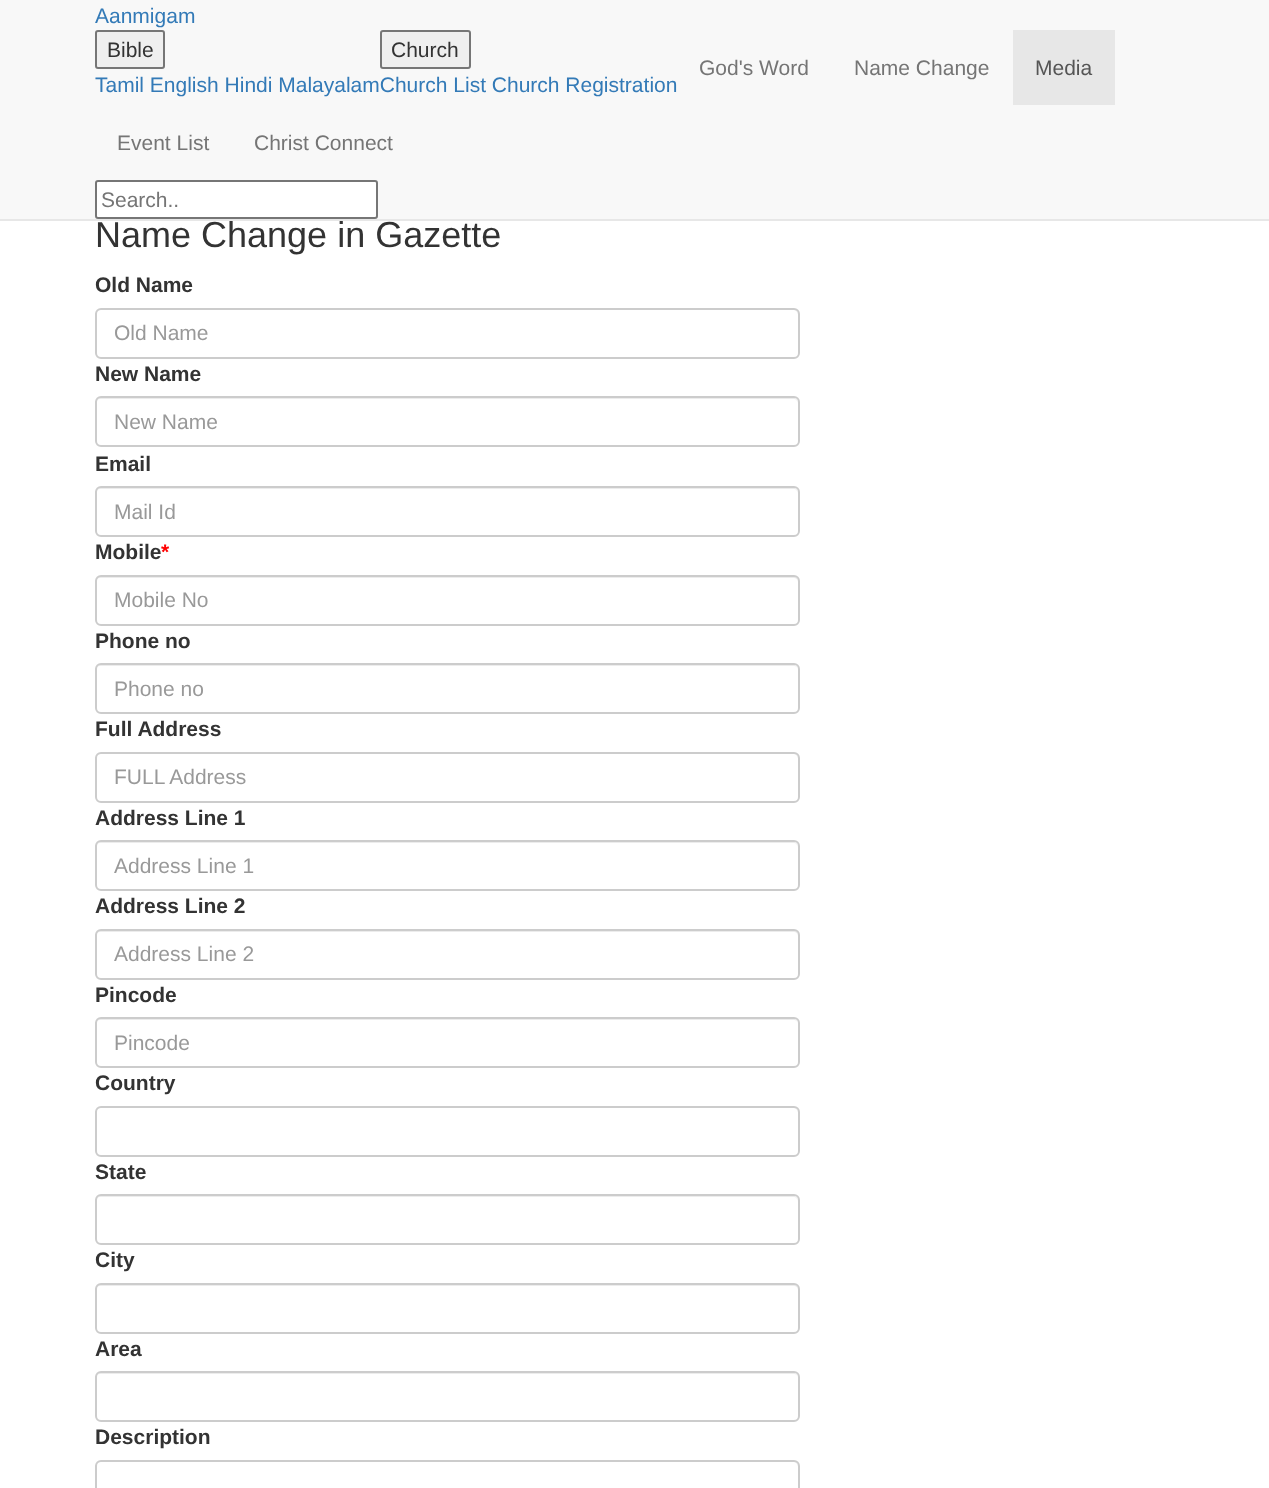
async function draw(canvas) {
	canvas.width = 1269;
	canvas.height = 1488;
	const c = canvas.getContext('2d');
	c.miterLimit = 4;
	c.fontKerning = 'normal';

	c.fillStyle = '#fff';
	c.fillRect(0, 0, 1269, 1488);
	c.fillStyle = '#f8f8f8';
	c.fillRect(0, 0, 1269, 219);
	c.font = '36px Liberation Sans';
	c.fillStyle = '#333';
	c.fillText('Name Change in Gazette', 95, 247);
	c.fillStyle = '#e7e7e7';
	c.fillRect(0, 219, 1269, 2);
	c.font = '21px Liberation Sans';
	c.fillStyle = '#337ab7';
	c.fillText('Aanmigam', 95, 23);
	c.fillStyle = '#efefef';
	c.beginPath();
	c.roundRect(96, 31, 68, 37, 2);
	c.fill();
	c.strokeStyle = '#767676';
	c.lineWidth = 2;
	c.stroke();
	c.fillStyle = '#333';
	c.fillText('Bible', 107, 57);
	c.fillStyle = '#337ab7';
	c.fillText('Tamil English Hindi MalayalamChurch List Church Registration', 95, 92);
	c.fillStyle = '#efefef';
	c.beginPath();
	c.roundRect(381, 31, 89, 37, 2);
	c.fill();
	c.stroke();
	c.fillStyle = '#333';
	c.fillText('Church', 391, 57);
	c.fillStyle = '#757575';
	c.fillText('God\'s Word', 699, 75);
	c.fillText('Name Change', 854, 75);
	c.fillStyle = '#e7e7e7';
	c.fillRect(1013, 30, 102, 75);
	c.fillStyle = '#555';
	c.fillText('Media', 1035, 75);
	c.fillStyle = '#757575';
	c.fillText('Event List', 117, 150);
	c.fillText('Christ Connect', 254, 150);
	c.fillStyle = '#fff';
	c.beginPath();
	c.roundRect(96, 181, 281, 37, 2);
	c.fill();
	c.stroke();
	c.fillStyle = '#757575';
	c.fillText('Search..', 101, 207);
	c.font = 'bold 21px Liberation Sans';
	c.fillStyle = '#333';
	c.fillText('Old Name', 95, 292);
	c.fillStyle = '#ececec';
	c.beginPath();
	c.moveTo(100, 310);
	c.lineTo(794, 310);
	c.bezierCurveTo(796, 310, 798, 313, 798, 315);
	c.lineTo(798, 314);
	c.bezierCurveTo(798, 311, 796, 309, 793, 309);
	c.lineTo(101, 309);
	c.bezierCurveTo(98, 309, 96, 311, 96, 314);
	c.lineTo(96, 315);
	c.bezierCurveTo(96, 313, 98, 310, 100, 310);
	c.closePath();
	c.fill();
	c.beginPath();
	c.roundRect(96, 309, 703, 49, 5);
	c.strokeStyle = '#ccc';
	c.stroke();
	c.font = '21px Liberation Sans';
	c.fillStyle = '#999';
	c.fillText('Old Name', 114, 340);
	c.font = 'bold 21px Liberation Sans';
	c.fillStyle = '#333';
	c.fillText('New Name', 95, 381);
	c.fillStyle = '#ececec';
	c.beginPath();
	c.moveTo(100, 399);
	c.lineTo(794, 399);
	c.bezierCurveTo(796, 399, 798, 401, 798, 404);
	c.lineTo(798, 403);
	c.bezierCurveTo(798, 400, 796, 398, 793, 398);
	c.lineTo(101, 398);
	c.bezierCurveTo(98, 398, 96, 400, 96, 403);
	c.lineTo(96, 404);
	c.bezierCurveTo(96, 401, 98, 399, 100, 399);
	c.closePath();
	c.fill();
	c.beginPath();
	c.roundRect(96, 397, 703, 49, 5);
	c.stroke();
	c.font = '21px Liberation Sans';
	c.fillStyle = '#999';
	c.fillText('New Name', 114, 429);
	c.font = 'bold 21px Liberation Sans';
	c.fillStyle = '#333';
	c.fillText('Email', 95, 471);
	c.fillStyle = '#ececec';
	c.beginPath();
	c.moveTo(100, 489);
	c.lineTo(794, 489);
	c.bezierCurveTo(796, 489, 798, 491, 798, 494);
	c.lineTo(798, 493);
	c.bezierCurveTo(798, 490, 796, 488, 793, 488);
	c.lineTo(101, 488);
	c.bezierCurveTo(98, 488, 96, 490, 96, 493);
	c.lineTo(96, 494);
	c.bezierCurveTo(96, 491, 98, 489, 100, 489);
	c.closePath();
	c.fill();
	c.beginPath();
	c.roundRect(96, 487, 703, 49, 5);
	c.stroke();
	c.font = '21px Liberation Sans';
	c.fillStyle = '#999';
	c.fillText('Mail Id', 114, 519);
	c.font = 'bold 21px Liberation Sans';
	c.fillStyle = '#333';
	c.fillText('Mobile', 95, 559);
	c.fillStyle = '#f00';
	c.fillText('*', 161, 559);
	c.fillStyle = '#ececec';
	c.beginPath();
	c.moveTo(100, 578);
	c.lineTo(794, 578);
	c.bezierCurveTo(796, 578, 798, 580, 798, 582);
	c.lineTo(798, 581);
	c.bezierCurveTo(798, 578, 796, 576, 793, 576);
	c.lineTo(101, 576);
	c.bezierCurveTo(98, 576, 96, 578, 96, 581);
	c.lineTo(96, 582);
	c.bezierCurveTo(96, 580, 98, 578, 100, 578);
	c.closePath();
	c.fill();
	c.beginPath();
	c.roundRect(96, 576, 703, 49, 5);
	c.stroke();
	c.font = '21px Liberation Sans';
	c.fillStyle = '#999';
	c.fillText('Mobile No', 114, 607);
	c.font = 'bold 21px Liberation Sans';
	c.fillStyle = '#333';
	c.fillText('Phone no', 95, 648);
	c.fillStyle = '#ececec';
	c.beginPath();
	c.moveTo(100, 666);
	c.lineTo(794, 666);
	c.bezierCurveTo(796, 666, 798, 668, 798, 670);
	c.bezierCurveTo(798, 667, 796, 665, 793, 665);
	c.lineTo(101, 665);
	c.bezierCurveTo(98, 665, 96, 667, 96, 670);
	c.bezierCurveTo(96, 668, 98, 666, 100, 666);
	c.closePath();
	c.fill();
	c.beginPath();
	c.roundRect(96, 664, 703, 49, 5);
	c.stroke();
	c.font = '21px Liberation Sans';
	c.fillStyle = '#999';
	c.fillText('Phone no', 114, 696);
	c.font = 'bold 21px Liberation Sans';
	c.fillStyle = '#333';
	c.fillText('Full Address', 95, 736);
	c.fillStyle = '#ececec';
	c.beginPath();
	c.moveTo(100, 754);
	c.lineTo(794, 754);
	c.bezierCurveTo(796, 754, 798, 757, 798, 759);
	c.lineTo(798, 758);
	c.bezierCurveTo(798, 755, 796, 753, 793, 753);
	c.lineTo(101, 753);
	c.bezierCurveTo(98, 753, 96, 755, 96, 758);
	c.lineTo(96, 759);
	c.bezierCurveTo(96, 757, 98, 754, 100, 754);
	c.closePath();
	c.fill();
	c.beginPath();
	c.roundRect(96, 753, 703, 49, 5);
	c.stroke();
	c.font = '21px Liberation Sans';
	c.fillStyle = '#999';
	c.fillText('FULL Address', 114, 784);
	c.font = 'bold 21px Liberation Sans';
	c.fillStyle = '#333';
	c.fillText('Address Line 1', 95, 825);
	c.fillStyle = '#ececec';
	c.beginPath();
	c.moveTo(100, 843);
	c.lineTo(794, 843);
	c.bezierCurveTo(796, 843, 798, 845, 798, 848);
	c.lineTo(798, 847);
	c.bezierCurveTo(798, 844, 796, 842, 793, 842);
	c.lineTo(101, 842);
	c.bezierCurveTo(98, 842, 96, 844, 96, 847);
	c.lineTo(96, 848);
	c.bezierCurveTo(96, 845, 98, 843, 100, 843);
	c.closePath();
	c.fill();
	c.beginPath();
	c.roundRect(96, 841, 703, 49, 5);
	c.stroke();
	c.font = '21px Liberation Sans';
	c.fillStyle = '#999';
	c.fillText('Address Line 1', 114, 873);
	c.font = 'bold 21px Liberation Sans';
	c.fillStyle = '#333';
	c.fillText('Address Line 2', 95, 913);
	c.fillStyle = '#ececec';
	c.beginPath();
	c.moveTo(100, 932);
	c.lineTo(794, 932);
	c.bezierCurveTo(796, 932, 798, 934, 798, 936);
	c.lineTo(798, 935);
	c.bezierCurveTo(798, 932, 796, 930, 793, 930);
	c.lineTo(101, 930);
	c.bezierCurveTo(98, 930, 96, 932, 96, 935);
	c.lineTo(96, 936);
	c.bezierCurveTo(96, 934, 98, 932, 100, 932);
	c.closePath();
	c.fill();
	c.beginPath();
	c.roundRect(96, 930, 703, 49, 5);
	c.stroke();
	c.font = '21px Liberation Sans';
	c.fillStyle = '#999';
	c.fillText('Address Line 2', 114, 961);
	c.font = 'bold 21px Liberation Sans';
	c.fillStyle = '#333';
	c.fillText('Pincode', 95, 1002);
	c.fillStyle = '#ececec';
	c.beginPath();
	c.moveTo(100, 1020);
	c.lineTo(794, 1020);
	c.bezierCurveTo(796, 1020, 798, 1022, 798, 1024);
	c.bezierCurveTo(798, 1021, 796, 1019, 793, 1019);
	c.lineTo(101, 1019);
	c.bezierCurveTo(98, 1019, 96, 1021, 96, 1024);
	c.bezierCurveTo(96, 1022, 98, 1020, 100, 1020);
	c.closePath();
	c.fill();
	c.beginPath();
	c.roundRect(96, 1018, 703, 49, 5);
	c.stroke();
	c.font = '21px Liberation Sans';
	c.fillStyle = '#999';
	c.fillText('Pincode', 114, 1050);
	c.font = 'bold 21px Liberation Sans';
	c.fillStyle = '#333';
	c.fillText('Country', 95, 1090);
	c.fillStyle = '#ececec';
	c.beginPath();
	c.moveTo(100, 1108);
	c.lineTo(794, 1108);
	c.bezierCurveTo(796, 1108, 798, 1111, 798, 1113);
	c.lineTo(798, 1112);
	c.bezierCurveTo(798, 1109, 796, 1107, 793, 1107);
	c.lineTo(101, 1107);
	c.bezierCurveTo(98, 1107, 96, 1109, 96, 1112);
	c.lineTo(96, 1113);
	c.bezierCurveTo(96, 1111, 98, 1108, 100, 1108);
	c.closePath();
	c.fill();
	c.beginPath();
	c.roundRect(96, 1107, 703, 49, 5);
	c.stroke();
	c.fillStyle = '#333';
	c.fillText('State', 95, 1179);
	c.fillStyle = '#ececec';
	c.beginPath();
	c.moveTo(100, 1197);
	c.lineTo(794, 1197);
	c.bezierCurveTo(796, 1197, 798, 1199, 798, 1202);
	c.lineTo(798, 1201);
	c.bezierCurveTo(798, 1198, 796, 1196, 793, 1196);
	c.lineTo(101, 1196);
	c.bezierCurveTo(98, 1196, 96, 1198, 96, 1201);
	c.lineTo(96, 1202);
	c.bezierCurveTo(96, 1199, 98, 1197, 100, 1197);
	c.closePath();
	c.fill();
	c.beginPath();
	c.roundRect(96, 1195, 703, 49, 5);
	c.stroke();
	c.fillStyle = '#333';
	c.fillText('City', 95, 1267);
	c.fillStyle = '#ececec';
	c.beginPath();
	c.moveTo(100, 1286);
	c.lineTo(794, 1286);
	c.bezierCurveTo(796, 1286, 798, 1288, 798, 1290);
	c.lineTo(798, 1289);
	c.bezierCurveTo(798, 1286, 796, 1284, 793, 1284);
	c.lineTo(101, 1284);
	c.bezierCurveTo(98, 1284, 96, 1286, 96, 1289);
	c.lineTo(96, 1290);
	c.bezierCurveTo(96, 1288, 98, 1286, 100, 1286);
	c.closePath();
	c.fill();
	c.beginPath();
	c.roundRect(96, 1284, 703, 49, 5);
	c.stroke();
	c.fillStyle = '#333';
	c.fillText('Area', 95, 1356);
	c.fillStyle = '#ececec';
	c.beginPath();
	c.moveTo(100, 1374);
	c.lineTo(794, 1374);
	c.bezierCurveTo(796, 1374, 798, 1376, 798, 1378);
	c.bezierCurveTo(798, 1375, 796, 1373, 793, 1373);
	c.lineTo(101, 1373);
	c.bezierCurveTo(98, 1373, 96, 1375, 96, 1378);
	c.bezierCurveTo(96, 1376, 98, 1374, 100, 1374);
	c.closePath();
	c.fill();
	c.beginPath();
	c.roundRect(96, 1372, 703, 49, 5);
	c.stroke();
	c.fillStyle = '#333';
	c.fillText('Description', 95, 1444);
	c.fillStyle = '#ececec';
	c.beginPath();
	c.moveTo(100, 1462);
	c.lineTo(794, 1462);
	c.bezierCurveTo(796, 1462, 798, 1465, 798, 1467);
	c.lineTo(798, 1466);
	c.bezierCurveTo(798, 1463, 796, 1461, 793, 1461);
	c.lineTo(101, 1461);
	c.bezierCurveTo(98, 1461, 96, 1463, 96, 1466);
	c.lineTo(96, 1467);
	c.bezierCurveTo(96, 1465, 98, 1462, 100, 1462);
	c.closePath();
	c.fill();
	c.beginPath();
	c.roundRect(96, 1461, 703, 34, 5);
	c.stroke();
}

draw(document.querySelector('canvas'));
